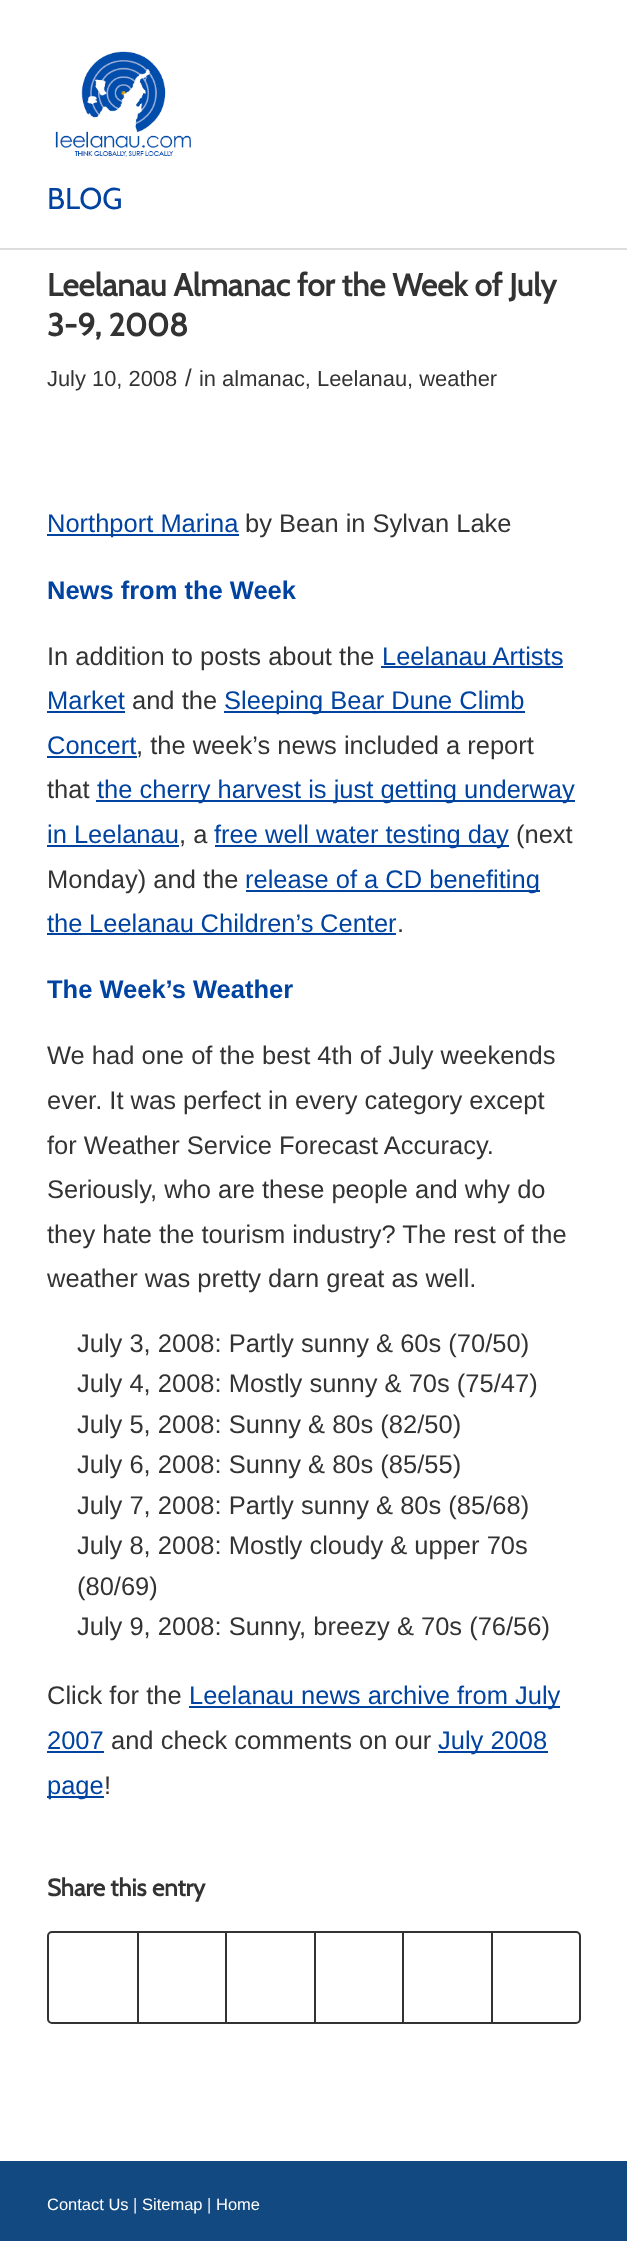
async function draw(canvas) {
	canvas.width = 627;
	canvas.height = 2241;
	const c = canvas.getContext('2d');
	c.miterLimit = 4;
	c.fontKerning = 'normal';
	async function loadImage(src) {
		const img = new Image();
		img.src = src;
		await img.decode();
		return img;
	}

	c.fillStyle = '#fff';
	c.fillRect(0, 0, 627, 2241);
	c.drawImage(await loadImage('img1.png'), 55, 51, 136, 106);
	c.font = '30px Cabin';
	c.fillStyle = '#0043a0';
	c.fillText('BLOG', 47, 209);
	c.fillStyle = '#ddd';
	c.fillRect(0, 248, 627, 2);
	c.font = 'bold 31.5px Cabin';
	c.fillStyle = '#333';
	c.fillText('Leelanau Almanac for the Week of July', 47, 296);
	c.fillText('3-9, 2008', 47, 336);
	c.font = '21.9px Liberation Sans';
	c.fillText('July 10, 2008', 47, 386);
	c.font = '24px Liberation Sans';
	c.fillText('/', 185, 386);
	c.font = '21.9px Liberation Sans';
	c.fillText('in almanac, Leelanau, weather', 199, 386);
	c.fillStyle = '#0043a0';
	c.fillRect(47, 534, 192, 2);
	c.font = '25.5px Liberation Sans';
	c.fillText('Northport Marina', 47, 532);
	c.fillStyle = '#333';
	c.fillText('by Bean in Sylvan Lake', 245, 532);
	c.font = 'bold 25.5px Liberation Sans';
	c.fillStyle = '#0043a0';
	c.fillText('News from the Week', 47, 599);
	c.font = '25.5px Liberation Sans';
	c.fillStyle = '#333';
	c.fillText('In addition to posts about the', 47, 665);
	c.fillStyle = '#0043a0';
	c.fillText('Leelanau Artists', 382, 665);
	c.fillRect(381, 666, 182, 2);
	c.fillText('Market', 47, 709);
	c.fillRect(47, 711, 78, 2);
	c.fillStyle = '#333';
	c.fillText('and the', 132, 709);
	c.fillStyle = '#0043a0';
	c.fillRect(224, 711, 301, 2);
	c.fillText('Sleeping Bear Dune Climb', 224, 709);
	c.fillText('Concert', 47, 754);
	c.fillRect(47, 756, 90, 2);
	c.fillStyle = '#333';
	c.fillText(', the week’s news included a report', 136, 754);
	c.fillText('that', 47, 798);
	c.fillStyle = '#0043a0';
	c.fillRect(96, 800, 479, 2);
	c.fillText('the cherry harvest is just getting underway', 97, 798);
	c.fillText('in Leelanau', 47, 843);
	c.fillRect(47, 845, 132, 2);
	c.fillStyle = '#333';
	c.fillText(', a', 179, 843);
	c.fillStyle = '#0043a0';
	c.fillRect(215, 845, 294, 2);
	c.fillText('free well water testing day', 214, 843);
	c.fillStyle = '#333';
	c.fillText('(next', 516, 843);
	c.fillText('Monday) and the', 47, 888);
	c.fillStyle = '#0043a0';
	c.fillRect(246, 890, 294, 2);
	c.fillText('release of a CD benefiting', 245, 888);
	c.wordSpacing = '-0.5px';
	c.fillText('the Leelanau Children’s Center', 47, 932);
	c.fillRect(47, 933, 349, 2);
	c.wordSpacing = '0px';
	c.fillStyle = '#333';
	c.fillText('.', 397, 932);
	c.font = 'bold 25.5px Liberation Sans';
	c.fillStyle = '#0043a0';
	c.fillText('The Week’s Weather', 47, 998);
	c.font = '25.5px Liberation Sans';
	c.fillStyle = '#333';
	for (const [text, x, y] of [
		['We had one of the best 4th of July weekends', 47, 1064],
		['ever. It was perfect in every category except', 47, 1109],
		['for Weather Service Forecast Accuracy.', 47, 1154],
		['Seriously, who are these people and why do', 47, 1198],
		['they hate the tourism industry? The rest of the', 47, 1243],
		['weather was pretty darn great as well.', 47, 1287],
		['July 3, 2008: Partly sunny & 60s (70/50)', 77, 1352],
		['July 4, 2008: Mostly sunny & 70s (75/47)', 77, 1392],
		['July 5, 2008: Sunny & 80s (82/50)', 77, 1433],
		['July 6, 2008: Sunny & 80s (85/55)', 77, 1473],
		['July 7, 2008: Partly sunny & 80s (85/68)', 77, 1514],
		['July 8, 2008: Mostly cloudy & upper 70s', 77, 1554],
		['(80/69)', 77, 1595],
		['July 9, 2008: Sunny, breezy & 70s (76/56)', 77, 1635],
		['Click for the', 47, 1704],
	]) {
		c.fillText(text, x, y);
	}
	c.fillStyle = '#0043a0';
	c.fillRect(189, 1706, 371, 2);
	c.fillText('Leelanau news archive from July', 189, 1704);
	c.fillText('2007', 47, 1749);
	c.fillRect(47, 1751, 57, 2);
	c.fillStyle = '#333';
	c.fillText('and check comments on our', 111, 1749);
	c.fillStyle = '#0043a0';
	c.fillRect(438, 1751, 110, 2);
	c.fillText('July 2008', 438, 1749);
	c.fillRect(47, 1796, 57, 2);
	c.fillText('page', 47, 1794);
	c.fillStyle = '#333';
	c.fillText('!', 104, 1794);
	c.font = 'bold 24px Cabin';
	c.fillText('Share this entry', 47, 1896);
	c.beginPath();
	c.roundRect(48, 1932, 532, 91, 4);
	c.strokeStyle = '#333';
	c.lineWidth = 2;
	c.stroke();
	for (const [x, y, w, h, color] of [
		[137, 1932, 2, 90, '#333'],
		[225, 1932, 2, 90, '#333'],
		[314, 1932, 2, 90, '#333'],
		[402, 1932, 2, 90, '#333'],
		[491, 1932, 2, 90, '#333'],
		[0, 2161, 627, 80, '#114980'],
	]) {
		c.fillStyle = color;
		c.fillRect(x, y, w, h);
	}
	c.font = '16.5px Liberation Sans';
	c.fillStyle = '#fff';
	c.fillText('Contact Us', 47, 2210);
	c.fillStyle = '#eee';
	c.fillText('|', 133, 2210);
	c.fillStyle = '#fff';
	c.fillText('Sitemap', 142, 2210);
	c.fillStyle = '#eee';
	c.fillText('|', 207, 2210);
	c.fillStyle = '#fff';
	c.fillText('Home', 216, 2210);
}

draw(document.querySelector('canvas'));
